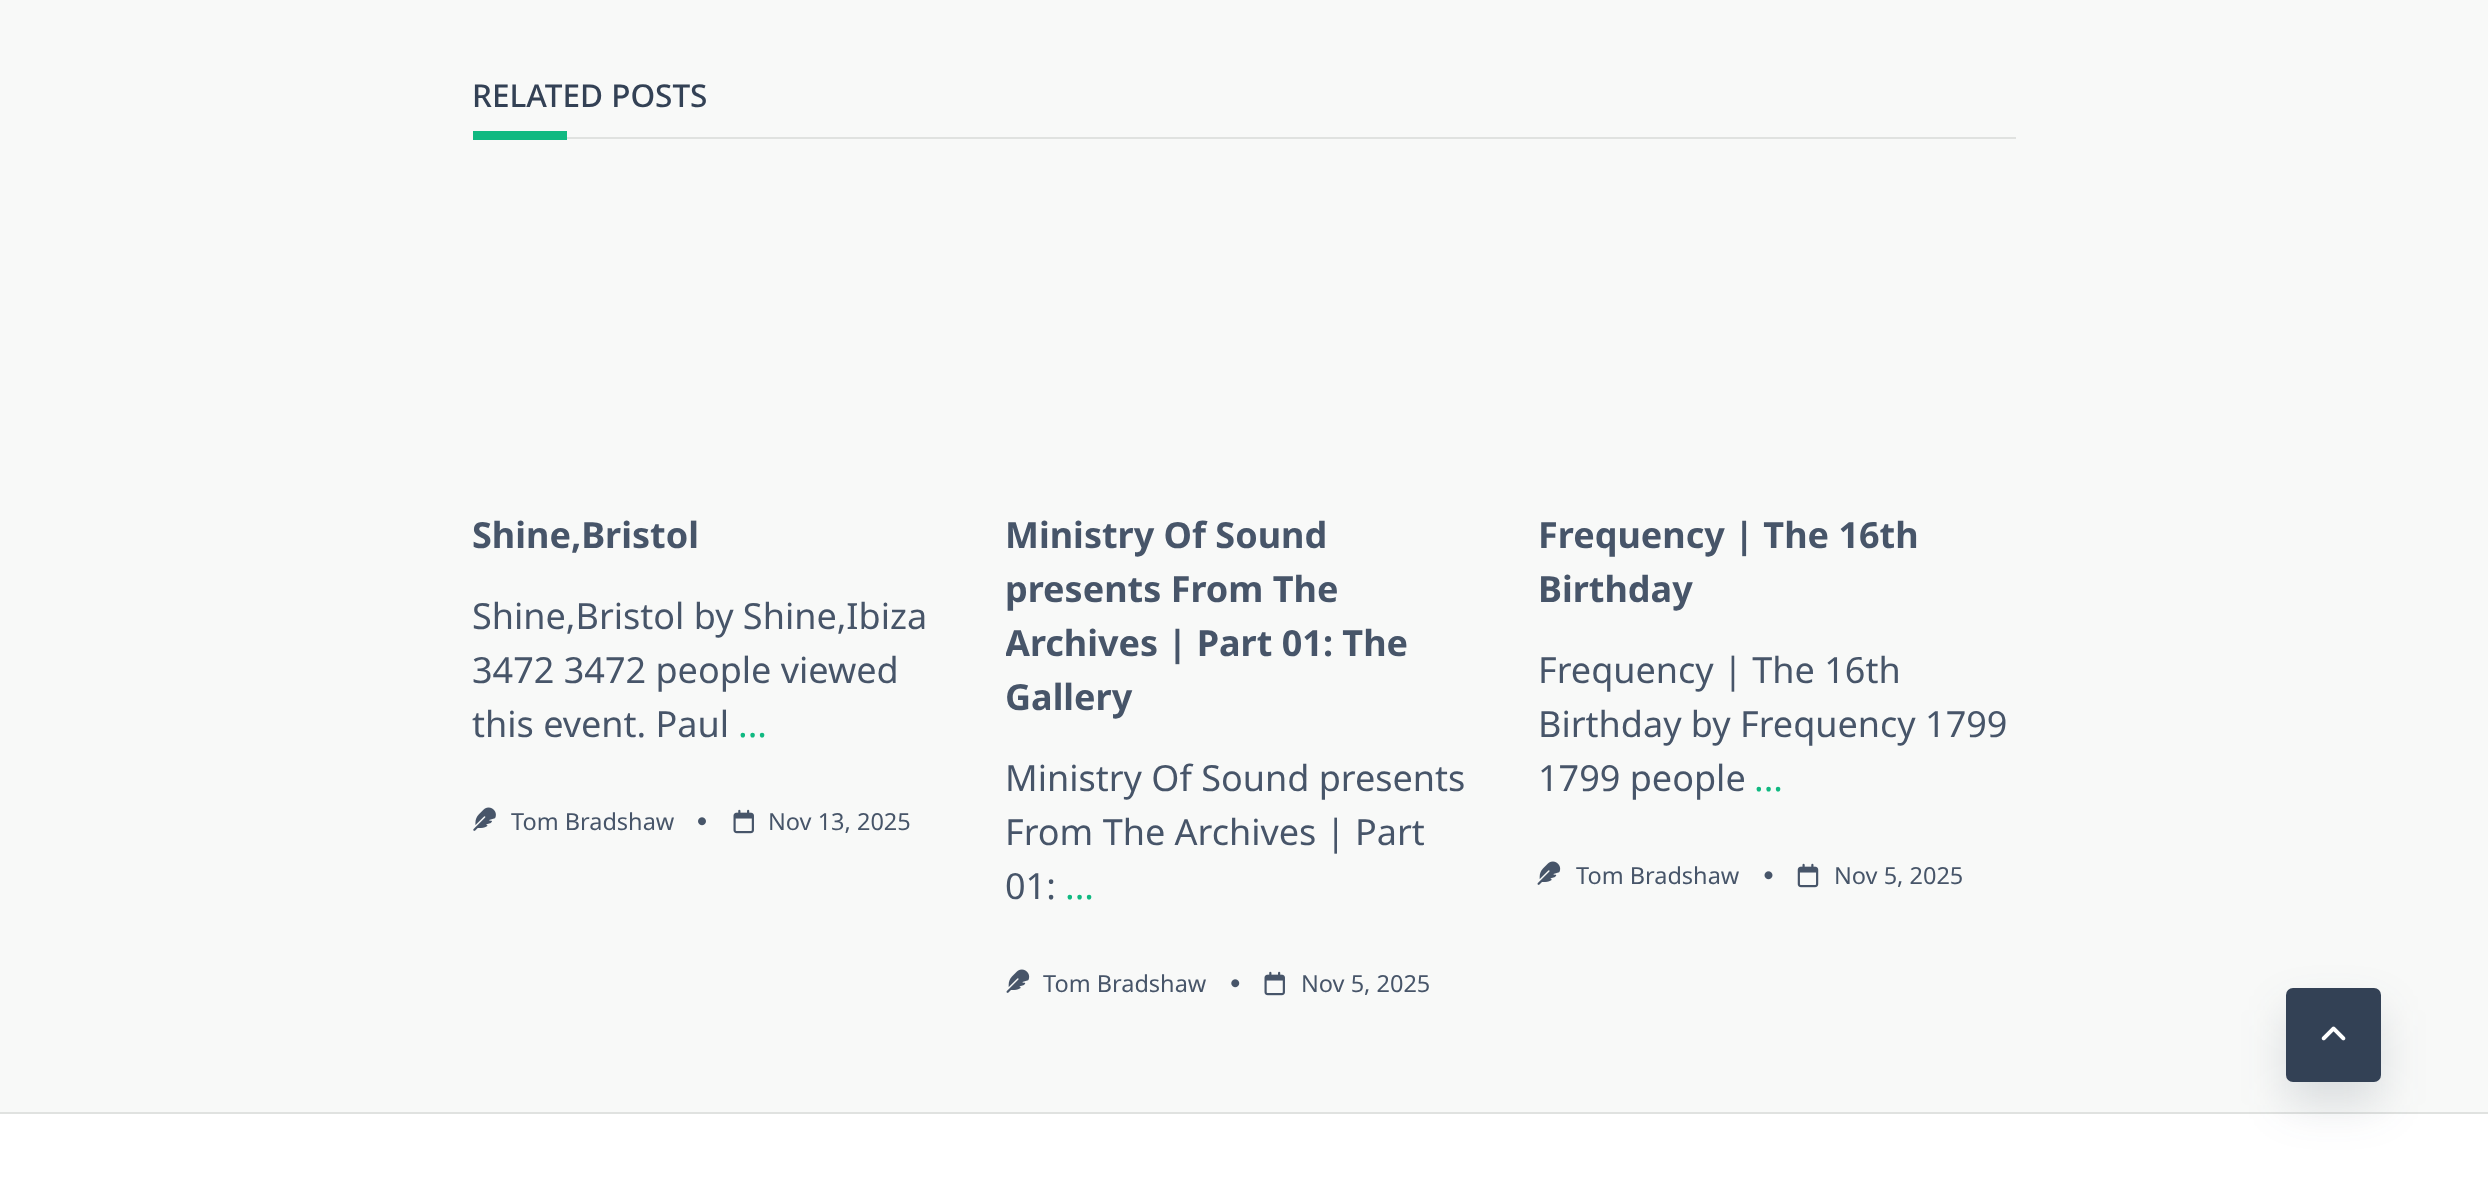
async function draw(canvas) {
	canvas.width = 2488;
	canvas.height = 1189;
	const c = canvas.getContext('2d');
	c.miterLimit = 4;
	c.fontKerning = 'normal';
	async function loadImage(src) {
		const img = new Image();
		img.src = src;
		await img.decode();
		return img;
	}

	c.fillStyle = '#f8f9f8';
	c.fillRect(0, 0, 2488, 1189);
	c.fillStyle = '#e0e2e0';
	c.fillRect(567, 137, 1449, 2);
	c.font = '500 31.5px Noto Sans';
	c.fillStyle = '#334155';
	c.fillText('RELATED POSTS', 472, 107);
	c.fillStyle = '#10b981';
	c.fillRect(473, 131, 94, 9);
	c.font = 'bold 36px Noto Sans';
	c.fillStyle = '#475569';
	c.fillText('Shine,Bristol', 472, 548);
	c.font = '36px Noto Sans';
	for (const [text, x, y] of [
		['Shine,Bristol by Shine,Ibiza', 472, 629],
		['3472 3472 people viewed', 472, 683],
		['this event. Paul', 472, 737],
	]) {
		c.fillText(text, x, y);
	}
	c.fillStyle = '#10b981';
	c.fillText('...', 738, 737);
	c.drawImage(await loadImage('img1.png'), 473, 807, 23, 24);
	c.font = '23.5px Noto Sans';
	c.fillStyle = '#475569';
	c.fillText('Tom Bradshaw', 511, 830);
	c.drawImage(await loadImage('img2.png'), 698, 817, 8, 9);
	c.drawImage(await loadImage('img3.png'), 733, 809, 21, 25);
	c.fillText('Nov 13, 2025', 768, 830);
	c.font = 'bold 36px Noto Sans';
	c.fillText('Ministry Of Sound', 1005, 548);
	c.fillText('presents From The', 1005, 602);
	c.save();
	c.beginPath();
	c.roundRect(1006, 194, 477, 810, 9);
	c.clip();
	c.fillText('Archives | Part 01: The', 1005, 656);
	c.restore();
	c.fillText('Gallery', 1005, 710);
	c.font = '36px Noto Sans';
	for (const [text, x, y] of [
		['Ministry Of Sound presents', 1005, 791],
		['From The Archives | Part', 1005, 845],
		['01:', 1005, 899],
	]) {
		c.fillText(text, x, y);
	}
	c.fillStyle = '#10b981';
	c.fillText('...', 1065, 899);
	c.drawImage(await loadImage('img4.png'), 1006, 969, 24, 24);
	c.font = '23.5px Noto Sans';
	c.fillStyle = '#475569';
	c.fillText('Tom Bradshaw', 1043, 992);
	c.drawImage(await loadImage('img5.png'), 1231, 979, 9, 9);
	c.drawImage(await loadImage('img3.png'), 1264, 971, 21, 25);
	c.fillText('Nov 5, 2025', 1301, 992);
	c.font = 'bold 36px Noto Sans';
	c.fillText('Frequency | The 16th', 1538, 548);
	c.fillText('Birthday', 1538, 602);
	c.font = '36px Noto Sans';
	for (const [text, x, y] of [
		['Frequency | The 16th', 1538, 683],
		['Birthday by Frequency 1799', 1538, 737],
		['1799 people', 1538, 791],
	]) {
		c.fillText(text, x, y);
	}
	c.fillStyle = '#10b981';
	c.fillText('...', 1754, 791);
	c.drawImage(await loadImage('img4.png'), 1537, 861, 24, 24);
	c.font = '23.5px Noto Sans';
	c.fillStyle = '#475569';
	c.fillText('Tom Bradshaw', 1576, 884);
	c.drawImage(await loadImage('img6.png'), 1764, 871, 9, 9);
	c.drawImage(await loadImage('img7.png'), 1797, 863, 22, 25);
	c.fillText('Nov 5, 2025', 1834, 884);
	c.fillStyle = '#fff';
	c.fillRect(0, 1114, 2488, 75);
	c.fillStyle = '#e0e2e0';
	c.fillRect(0, 1112, 2488, 2);
	c.fillStyle = '#2c3e5026';
	c.filter = 'blur(22.5px)';
	c.beginPath();
	c.roundRect(2286, 1010, 95, 95, 7);
	c.fill();
	c.filter = 'none';
	c.fillStyle = '#334155';
	c.beginPath();
	c.roundRect(2286, 988, 95, 94, 7);
	c.fill();
	c.drawImage(await loadImage('img8.png'), 2321, 1026, 25, 15);
}

draw(document.querySelector('canvas'));
